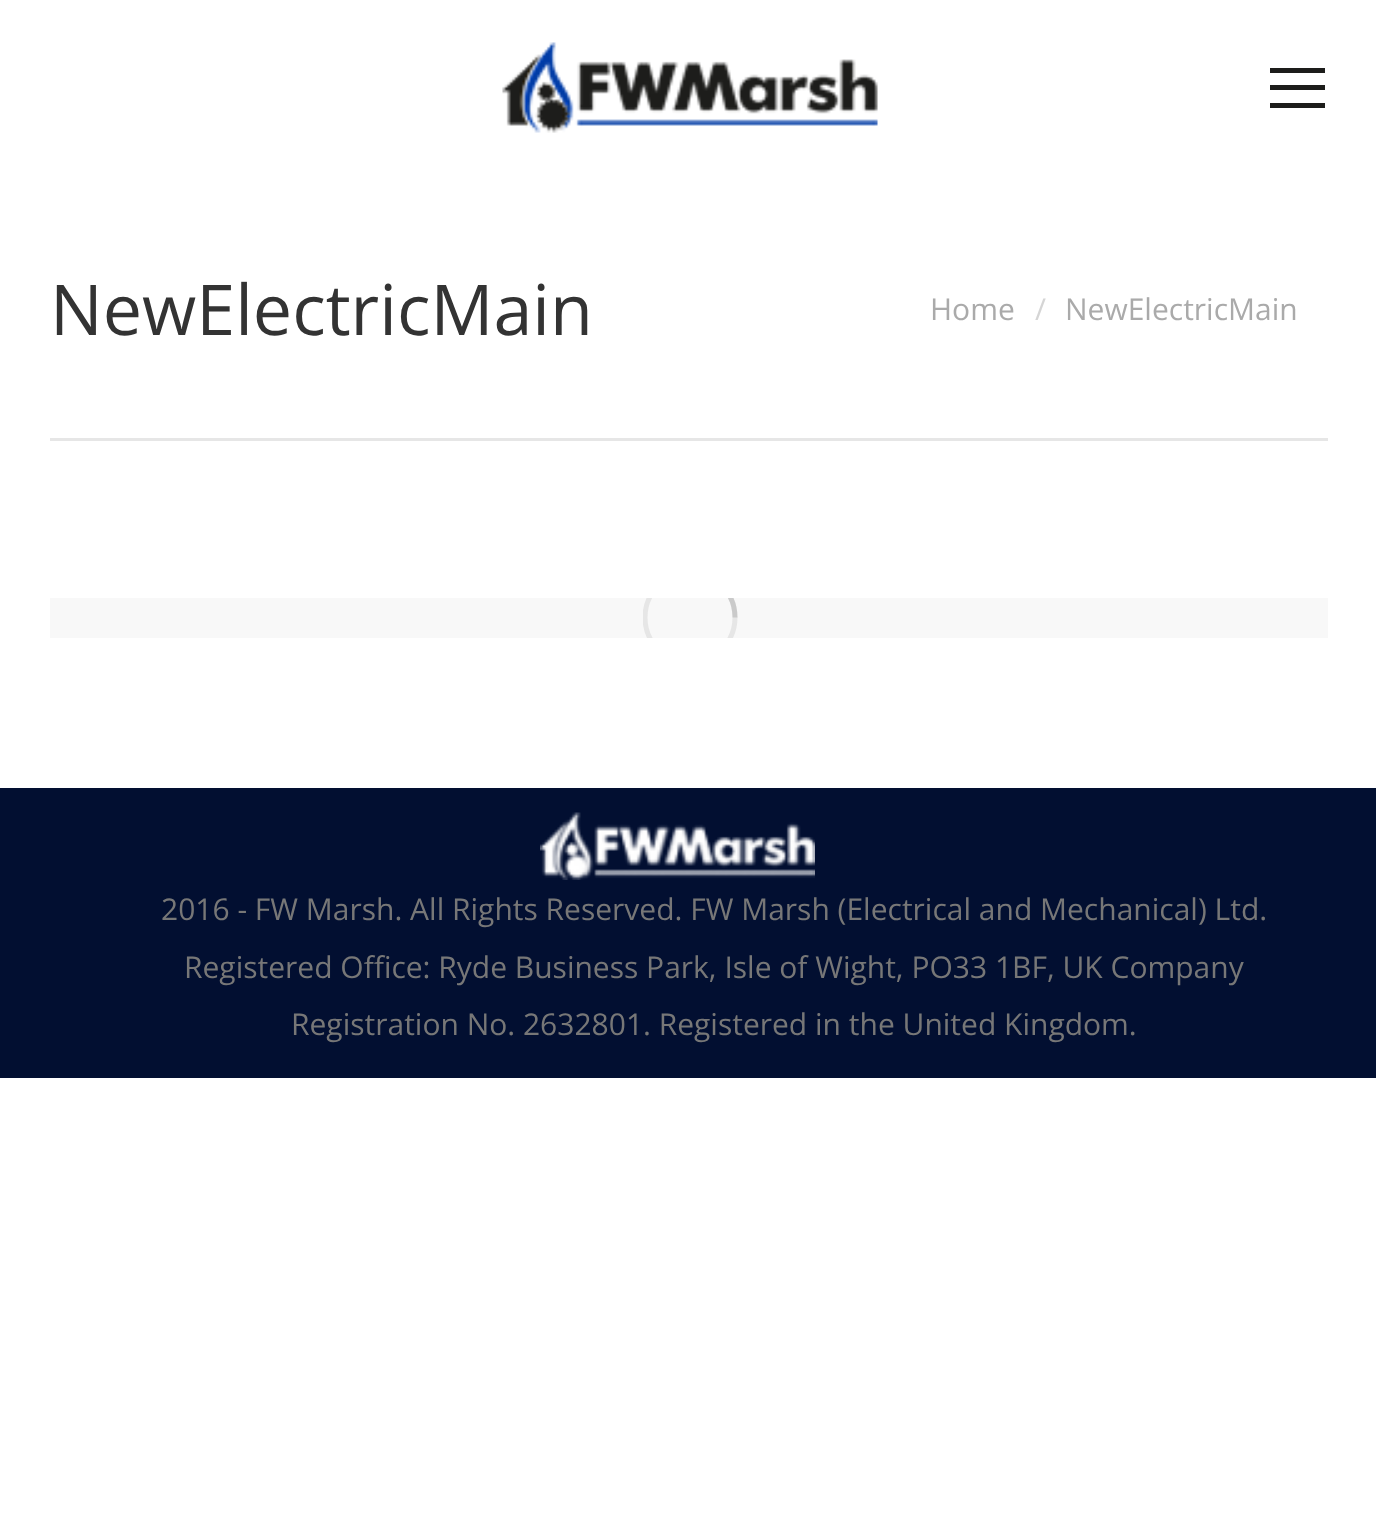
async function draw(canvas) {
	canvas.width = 1376;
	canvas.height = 1538;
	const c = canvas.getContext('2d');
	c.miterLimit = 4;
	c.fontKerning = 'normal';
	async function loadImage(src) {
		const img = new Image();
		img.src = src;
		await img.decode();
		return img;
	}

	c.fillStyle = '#fff';
	c.fillRect(0, 0, 1376, 1538);
	c.drawImage(await loadImage('img1.png'), 502, 42, 376, 91);
	for (const [x, y, w, h, color] of [
		[1270, 68, 55, 5, '#1d1d1b'],
		[1270, 85, 55, 5, '#1d1d1b'],
		[1270, 103, 55, 5, '#1d1d1b'],
	]) {
		c.fillStyle = color;
		c.fillRect(x, y, w, h);
	}
	c.font = '70px Open Sans';
	c.fillStyle = '#333';
	c.fillText('NewElectricMain', 50, 335);
	c.font = '30px Open Sans';
	c.fillStyle = '#aaa';
	c.fillText('Home', 930, 320);
	c.fillStyle = '#d5d5d5';
	c.fillText('/', 1035, 320);
	c.fillStyle = '#aaa';
	c.fillText('NewElectricMain', 1065, 320);
	c.fillStyle = '#e6e6e6';
	c.fillRect(50, 438, 1278, 3);
	c.fillStyle = '#f8f8f8';
	c.fillRect(50, 598, 1278, 40);
	c.save();
	c.beginPath();
	c.rect(643, 598, 95, 40);
	c.clip();
	c.beginPath();
	c.arc(690, 617.5, 45, 0, 2 * Math.PI);
	c.strokeStyle = '#e6e6e6';
	c.lineWidth = 5;
	c.stroke();
	c.beginPath();
	c.moveTo(735, 617.5);
	c.bezierCurveTo(735, 592.5, 715, 572.5, 690, 572.5);
	c.strokeStyle = '#77777740';
	c.stroke();
	c.restore();
	c.fillStyle = '#020f31';
	c.fillRect(0, 788, 1376, 290);
	c.drawImage(await loadImage('img2.png'), 540, 812, 275, 68);
	c.fillStyle = '#777';
	for (const [text, x, y] of [
		['2016 - FW Marsh. All Rights Reserved. FW Marsh (Electrical and Mechanical) Ltd.', 161, 920],
		['Registered Office: Ryde Business Park, Isle of Wight, PO33 1BF, UK Company', 184, 978],
		['Registration No. 2632801. Registered in the United Kingdom.', 291, 1035],
	]) {
		c.fillText(text, x, y);
	}
}

draw(document.querySelector('canvas'));
